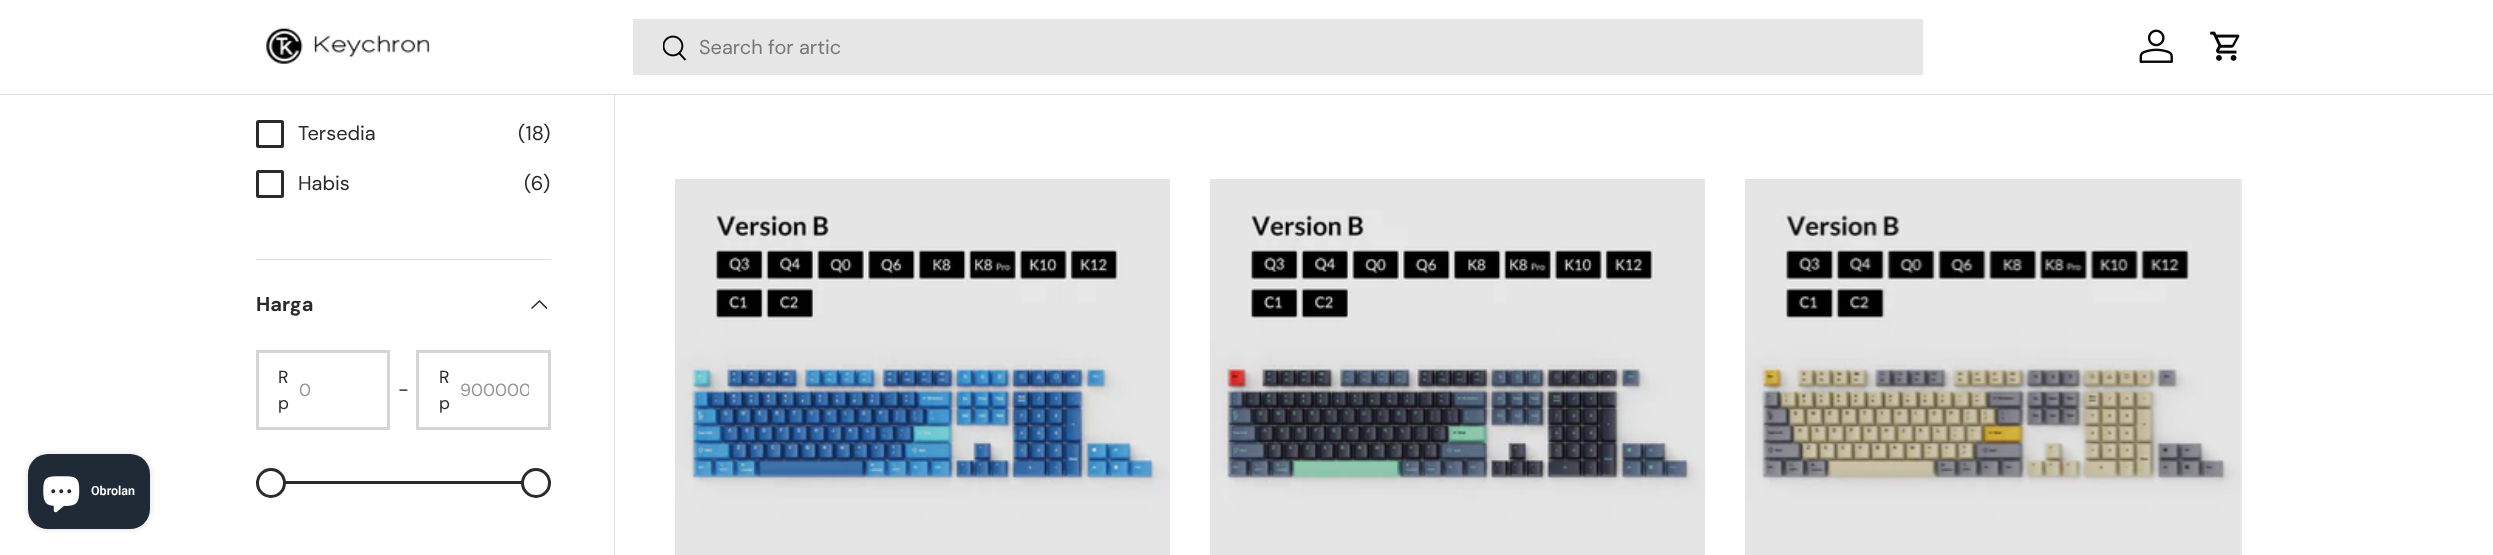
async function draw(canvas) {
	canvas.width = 2493;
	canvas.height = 555;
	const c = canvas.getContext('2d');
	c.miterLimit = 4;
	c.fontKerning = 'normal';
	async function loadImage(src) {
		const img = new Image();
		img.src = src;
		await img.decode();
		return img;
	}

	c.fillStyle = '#fff';
	c.fillRect(0, 0, 2493, 555);
	c.fillStyle = '#dadada';
	c.fillRect(0, 94, 2493, 1);
	c.drawImage(await loadImage('img1.png'), 266, 27, 164, 37);
	c.fillStyle = '#e6e6e6';
	c.fillRect(633, 19, 1290, 56);
	c.drawImage(await loadImage('img2.png'), 663, 35, 24, 26);
	c.font = '20px DM Sans';
	c.fillStyle = '#777';
	c.fillText('Search for artic', 699, 54);
	c.drawImage(await loadImage('img3.png'), 2139, 29, 34, 34);
	c.drawImage(await loadImage('img4.png'), 2210, 31, 30, 30);
	c.fillStyle = '#dfdfdf';
	c.fillRect(614, 95, 1, 460);
	c.fillRect(256, 259, 295, 1);
	c.beginPath();
	c.roundRect(257.5, 121.5, 25, 25, 1);
	c.strokeStyle = '#2a2b2a';
	c.lineWidth = 3;
	c.stroke();
	c.fillStyle = '#2a2b2a';
	c.fillText('Tersedia', 298, 140);
	c.fillText('(18)', 518, 140);
	c.beginPath();
	c.roundRect(257.5, 171.5, 25, 25, 1);
	c.stroke();
	c.fillText('Habis', 298, 190);
	c.fillText('(6)', 524, 190);
	c.font = 'bold 20px DM Sans';
	c.fillText('Harga', 256, 311);
	c.beginPath();
	c.moveTo(547, 308.5);
	c.lineTo(539.5, 301);
	c.lineTo(531.5, 308.5);
	c.lineWidth = 1.6;
	c.stroke();
	c.strokeStyle = '#d4d5d4';
	c.lineWidth = 3;
	c.strokeRect(257.5, 351.5, 131, 77);
	c.font = '17.5px "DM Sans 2"';
	c.fillText('R', 278, 383);
	c.font = '17.5px "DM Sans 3"';
	c.fillText('p', 278, 409);
	c.fillStyle = '#959595';
	c.fillText('0', 299, 396);
	c.font = '20px DM Sans';
	c.fillStyle = '#2a2b2a';
	c.fillText('-', 398, 396);
	c.strokeRect(417.5, 351.5, 132, 77);
	c.font = '17.5px "DM Sans 2"';
	c.fillText('R', 439, 383);
	c.font = '17.5px "DM Sans 3"';
	c.fillText('p', 439, 409);
	c.save();
	c.beginPath();
	c.rect(460, 379, 69, 22);
	c.clip();
	c.fillStyle = '#959595';
	c.fillText('900000', 460, 396);
	c.restore();
	c.fillRect(256, 481, 295, 3);
	c.fillStyle = '#fff';
	c.beginPath();
	c.arc(271, 483, 13.5, 0, 2 * Math.PI);
	c.fill();
	c.strokeStyle = '#2a2b2a';
	c.stroke();
	c.beginPath();
	c.arc(536, 483, 13.5, 0, 2 * Math.PI);
	c.fill();
	c.stroke();
	c.drawImage(await loadImage('img5.png'), 675, 179, 495, 376);
	c.drawImage(await loadImage('img6.png'), 1210, 179, 495, 376);
	c.drawImage(await loadImage('img7.png'), 1745, 179, 497, 376);
	c.fillStyle = '#00000026';
	c.filter = 'blur(3px)';
	c.beginPath();
	c.roundRect(28, 454, 122, 75, 20);
	c.fill();
	c.filter = 'none';
	c.fillStyle = '#202a36';
	c.beginPath();
	c.roundRect(28, 454, 122, 75, 20);
	c.fill();
	c.drawImage(await loadImage('img8.png'), 43, 476, 37, 37);
	c.font = '600 12.5px Roboto';
	c.fillStyle = '#fff';
	c.fillText('Obrolan', 91, 495);
}

draw(document.querySelector('canvas'));
